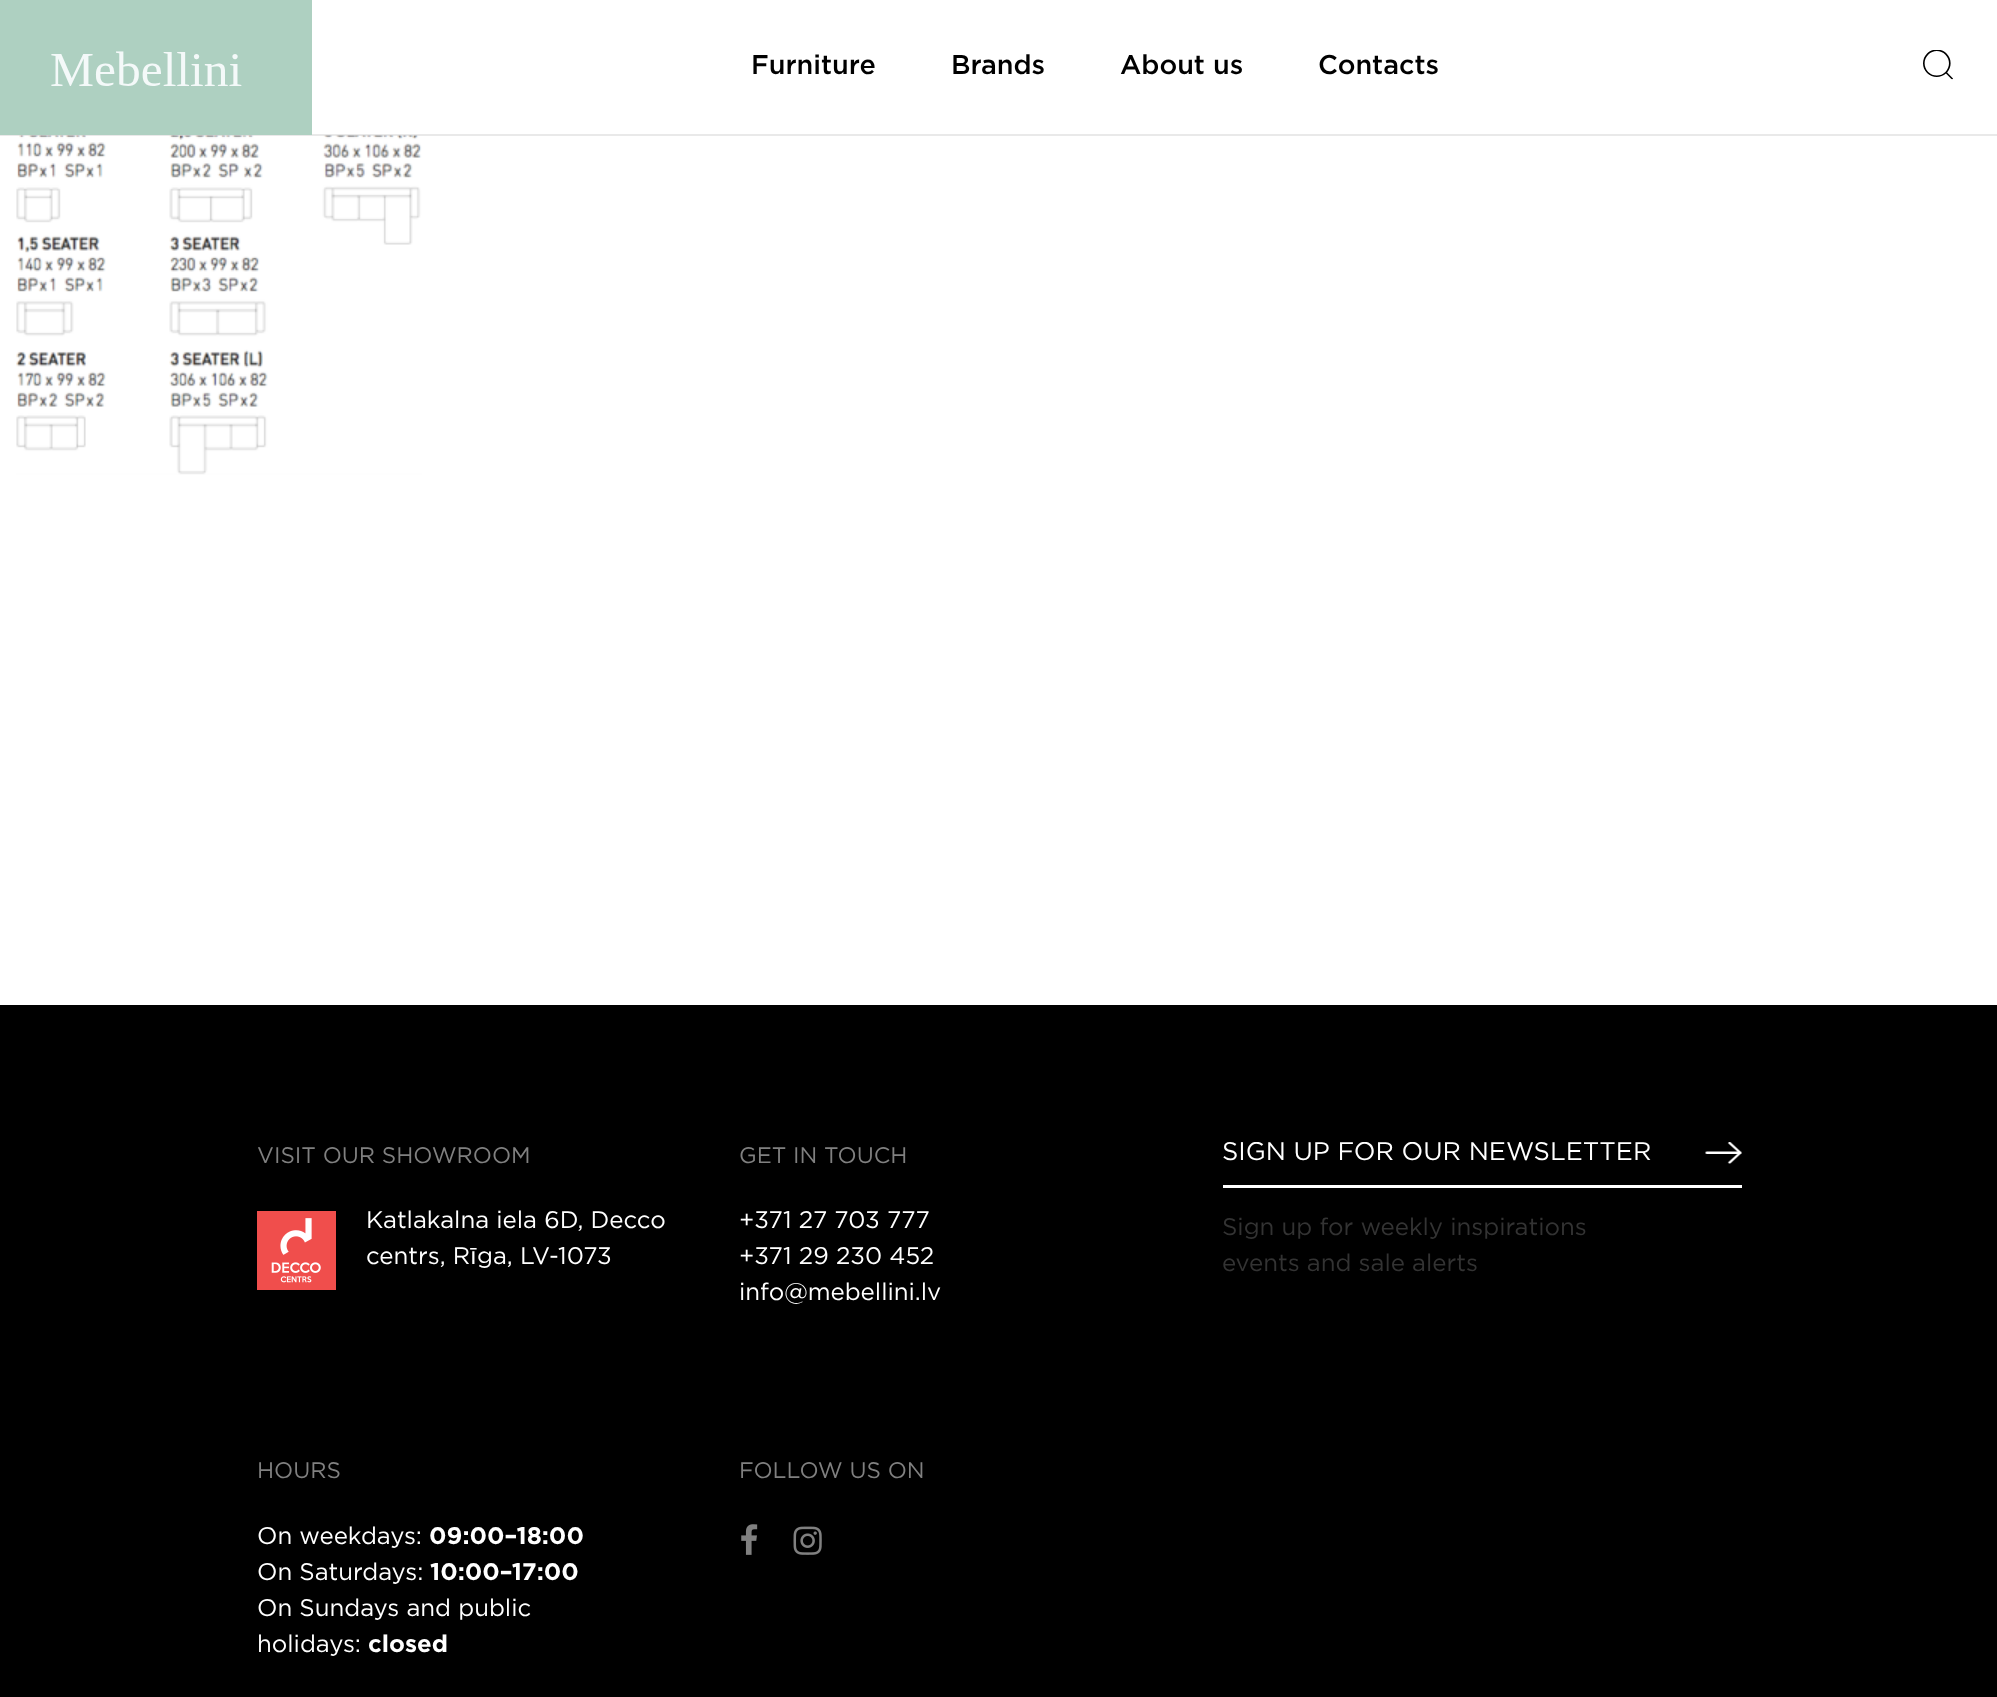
async function draw(canvas) {
	canvas.width = 1997;
	canvas.height = 1697;
	const c = canvas.getContext('2d');
	c.miterLimit = 4;
	c.fontKerning = 'normal';
	async function loadImage(src) {
		const img = new Image();
		img.src = src;
		await img.decode();
		return img;
	}

	c.fillStyle = '#fff';
	c.fillRect(0, 0, 1997, 1697);
	c.drawImage(await loadImage('img3.png'), 16, 135, 406, 340);
	c.fillStyle = '#e0e0e0b3';
	c.fillRect(0, 134, 1997, 2);
	c.fillStyle = '#aed0c1';
	c.fillRect(0, 0, 312, 135);
	c.drawImage(await loadImage('img1.png'), 51, 51, 191, 35);
	c.font = '500 27px Gotham';
	c.fillStyle = '#000';
	for (const [text, x, y] of [
		['Furniture', 751, 74],
		['Brands', 951, 74],
		['About us', 1120, 74],
		['Contacts', 1318, 74],
	]) {
		c.fillText(text, x, y);
	}
	c.drawImage(await loadImage('img2.png'), 1923, 50, 30, 30);
	c.fillRect(0, 1005, 1997, 692);
	c.font = '22.5px Gotham';
	c.fillStyle = '#808080';
	c.fillText('VISIT OUR SHOWROOM', 257, 1163);
	c.drawImage(await loadImage('img4.png'), 257, 1211, 79, 79);
	c.font = '24px Gotham';
	c.fillStyle = '#fff';
	c.fillText('Katlakalna iela 6D, Decco', 366, 1228);
	c.fillText('centrs, R', 366, 1264);
	c.font = '24px Liberation Sans';
	c.fillText('ī', 470, 1264);
	c.font = '24px Gotham';
	c.fillText('ga, LV-1073', 477, 1264);
	c.font = '22.5px Gotham';
	c.fillStyle = '#808080';
	c.fillText('GET IN TOUCH', 739, 1163);
	c.font = '24px Gotham';
	c.fillStyle = '#fff';
	for (const [text, x, y] of [
		['+371 27 703 777', 739, 1228],
		['+371 29 230 452', 739, 1264],
		['info@mebellini.lv', 739, 1300],
	]) {
		c.fillText(text, x, y);
	}
	c.font = '22.5px Gotham';
	c.fillStyle = '#808080';
	c.fillText('HOURS', 257, 1478);
	c.font = '24px Gotham';
	c.fillStyle = '#fff';
	c.fillText('On weekdays:', 257, 1544);
	c.font = 'bold 24px Gotham';
	c.fillText('09:00–18:00', 429, 1544);
	c.font = '24px Gotham';
	c.fillText('On Saturdays:', 257, 1580);
	c.font = 'bold 24px Gotham';
	c.fillText('10:00–17:00', 430, 1580);
	c.font = '24px Gotham';
	c.fillText('On Sundays and public', 257, 1616);
	c.fillText('holidays:', 257, 1652);
	c.font = 'bold 24px Gotham';
	c.fillText('closed', 368, 1652);
	c.font = '22.5px Gotham';
	c.fillStyle = '#808080';
	c.fillText('FOLLOW US ON', 739, 1478);
	c.drawImage(await loadImage('img5.png'), 741, 1524, 17, 31);
	c.drawImage(await loadImage('img6.png'), 793, 1526, 29, 29);
	c.fillStyle = '#fff';
	c.fillRect(1223, 1185, 519, 3);
	c.save();
	c.beginPath();
	c.rect(1223, 1142, 459, 24);
	c.clip();
	c.font = '25.5px Gotham';
	c.fillText('SIGN UP FOR OUR NEWSLETTER', 1222, 1160);
	c.restore();
	c.drawImage(await loadImage('img7.png'), 1705, 1142, 37, 22);
	c.font = '24px Gotham';
	c.fillStyle = '#333';
	c.fillText('Sign up for weekly inspirations', 1222, 1235);
	c.fillText('events and sale alerts', 1222, 1271);
}

draw(document.querySelector('canvas'));
